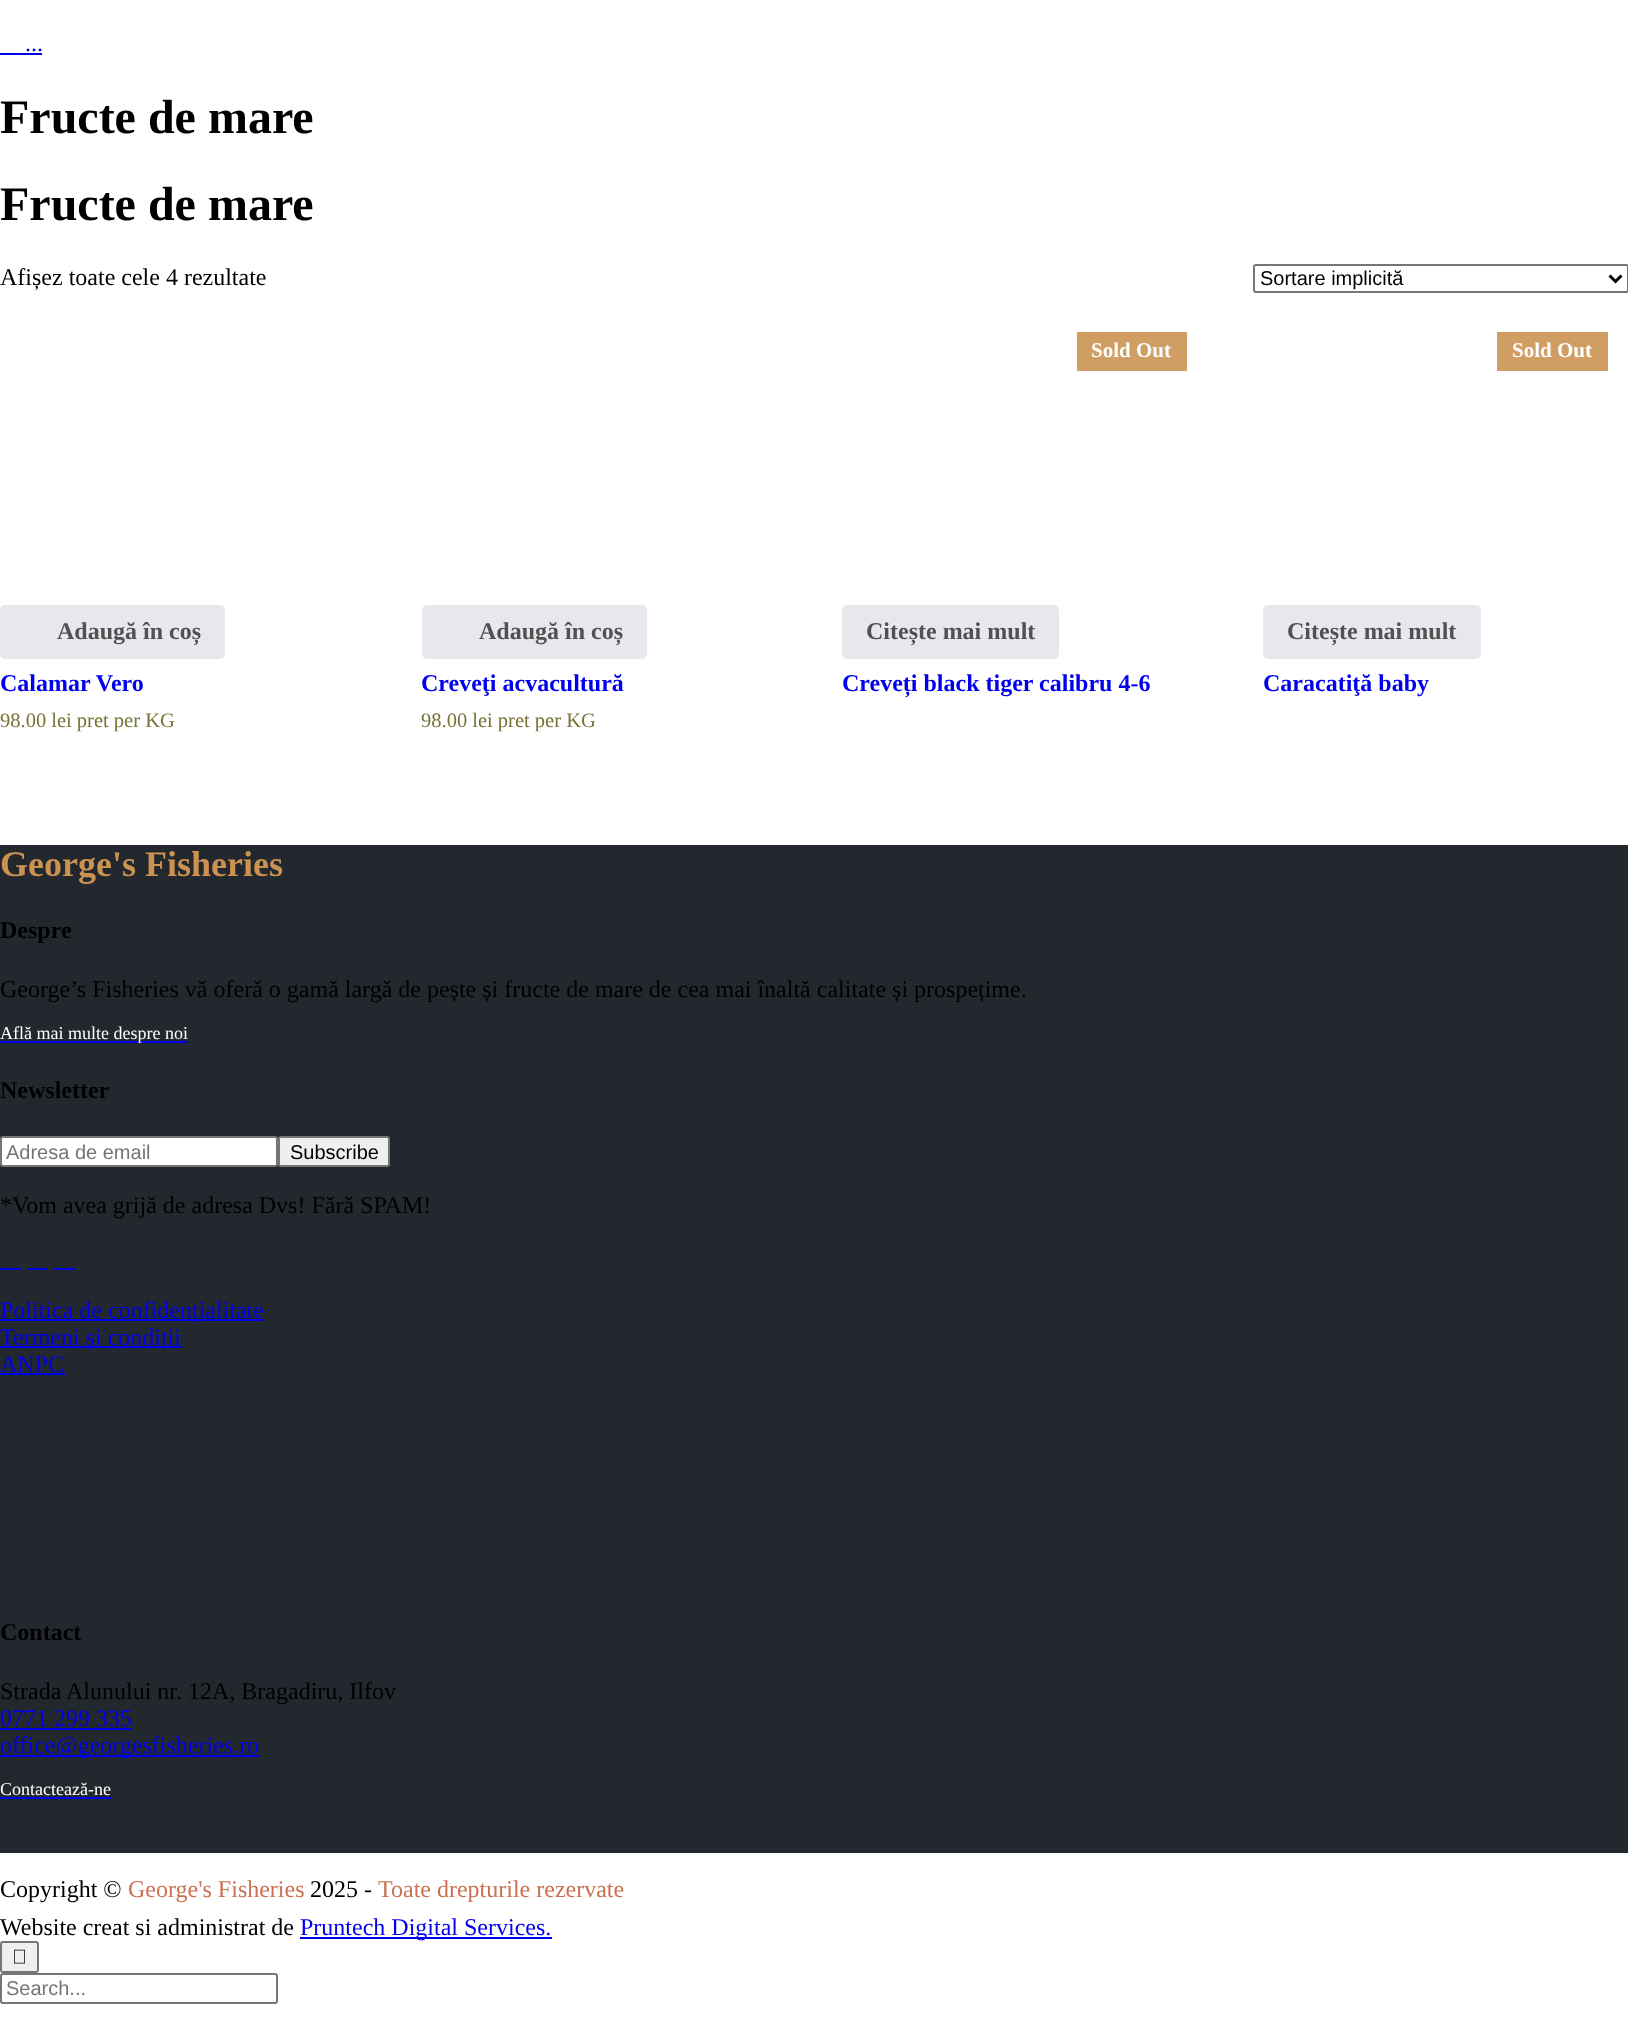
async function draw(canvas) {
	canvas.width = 1628;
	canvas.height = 2030;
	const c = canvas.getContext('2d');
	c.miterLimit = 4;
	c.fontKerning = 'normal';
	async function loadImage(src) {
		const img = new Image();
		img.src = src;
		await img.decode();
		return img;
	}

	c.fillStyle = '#fff';
	c.fillRect(0, 0, 1628, 2030);
	c.font = '24px Liberation Serif';
	c.fillStyle = '#00e';
	c.fillText('...', 25, 51);
	c.fillRect(0, 53, 42, 2);
	c.font = 'bold 48px Liberation Serif';
	c.fillStyle = '#000';
	c.fillText('Fructe de mare', 0, 133);
	c.fillText('Fructe de mare', 0, 220);
	c.font = '24px Liberation Serif';
	c.fillText('Afișez toate cele 4 rezultate', 0, 285);
	c.beginPath();
	c.roundRect(1254, 265, 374, 27, 2);
	c.strokeStyle = '#767676';
	c.lineWidth = 2;
	c.stroke();
	c.beginPath();
	c.moveTo(1609.5, 275.5);
	c.lineTo(1615.5, 281.5);
	c.lineTo(1621.5, 275.5);
	c.strokeStyle = '#000';
	c.lineWidth = 3;
	c.stroke();
	c.font = '20px Liberation Sans';
	c.fillText('Sortare implicită', 1260, 285);
	c.fillStyle = '#e9e6ed';
	c.beginPath();
	c.roundRect(0, 605, 225, 54, 5);
	c.fill();
	c.font = 'bold 24px Liberation Serif';
	c.fillStyle = '#515151';
	c.fillText('Adaugă în coș', 57, 639);
	c.fillStyle = '#00e';
	c.fillText('Calamar Vero', 0, 691);
	c.font = '20.5px Liberation Serif';
	c.fillStyle = '#777335';
	c.fillText('98.00 lei pret per KG', 0, 727);
	c.fillStyle = '#e9e6ed';
	c.beginPath();
	c.roundRect(422, 605, 225, 54, 5);
	c.fill();
	c.font = 'bold 24px Liberation Serif';
	c.fillStyle = '#515151';
	c.fillText('Adaugă în coș', 479, 639);
	c.fillStyle = '#00e';
	c.fillText('Creveţi acvacultură', 421, 691);
	c.font = '20.5px Liberation Serif';
	c.fillStyle = '#777335';
	c.fillText('98.00 lei pret per KG', 421, 727);
	c.fillStyle = '#d09e63';
	c.fillRect(1077, 332, 110, 39);
	c.font = 'bold 21px Liberation Serif';
	c.fillStyle = '#fff';
	c.fillText('Sold Out', 1091, 357);
	c.fillStyle = '#e9e6ed';
	c.beginPath();
	c.roundRect(842, 605, 217, 54, 5);
	c.fill();
	c.font = 'bold 24px Liberation Serif';
	c.fillStyle = '#515151';
	c.fillText('Citește mai mult', 866, 639);
	c.fillStyle = '#00e';
	c.fillText('Creveți black tiger calibru 4-6', 842, 691);
	c.fillStyle = '#d09e63';
	c.fillRect(1497, 332, 111, 39);
	c.font = 'bold 21px Liberation Serif';
	c.fillStyle = '#fff';
	c.fillText('Sold Out', 1512, 357);
	c.fillStyle = '#e9e6ed';
	c.beginPath();
	c.roundRect(1263, 605, 218, 54, 5);
	c.fill();
	c.font = 'bold 24px Liberation Serif';
	c.fillStyle = '#515151';
	c.fillText('Citește mai mult', 1287, 639);
	c.fillStyle = '#00e';
	c.fillText('Caracatiţă baby', 1263, 691);
	c.fillStyle = '#23282f';
	c.fillRect(0, 845, 1628, 1008);
	c.font = 'bold 36px Liberation Serif';
	c.fillStyle = '#cb9252';
	c.fillText('George\'s Fisheries', 0, 876);
	c.font = 'bold 24px Liberation Serif';
	c.fillStyle = '#000';
	c.fillText('Despre', 0, 938);
	c.font = '24px Liberation Serif';
	c.fillText('George’s Fisheries vă oferă o gamă largă de pește și fructe de mare de cea mai înaltă calitate și prospețime.', 0, 997);
	c.fillStyle = '#00e';
	c.fillRect(0, 1041, 188, 2);
	c.font = '18px Liberation Serif';
	c.fillStyle = '#fff';
	c.fillText('Află mai multe despre noi', 0, 1039);
	c.font = 'bold 24px Liberation Serif';
	c.fillStyle = '#000';
	c.fillText('Newsletter', 0, 1098);
	c.fillStyle = '#fff';
	c.beginPath();
	c.roundRect(1, 1137, 276, 29, 2);
	c.fill();
	c.strokeStyle = '#767676';
	c.lineWidth = 2;
	c.stroke();
	c.font = '20px Liberation Sans';
	c.fillStyle = '#757575';
	c.fillText('Adresa de email', 6, 1159);
	c.fillStyle = '#efefef';
	c.beginPath();
	c.roundRect(279, 1137, 110, 29, 2);
	c.fill();
	c.stroke();
	c.fillStyle = '#000';
	c.fillText('Subscribe', 290, 1159);
	c.font = '24px Liberation Serif';
	c.fillText('*Vom avea grijă de adresa Dvs! Fără SPAM!', 0, 1213);
	for (const [x, y, w, h, color] of [
		[0, 1268, 21, 2, '#00e'],
		[27, 1268, 21, 2, '#00e'],
		[54, 1268, 21, 2, '#00e'],
		[0, 1319, 264, 2, '#00e'],
	]) {
		c.fillStyle = color;
		c.fillRect(x, y, w, h);
	}
	c.fillText('Politica de confidențialitate', 0, 1318);
	c.fillRect(0, 1346, 182, 2);
	c.fillText('Termeni și condiții', 0, 1345);
	c.fillText('ANPC', 0, 1372);
	c.fillRect(0, 1373, 65, 2);
	c.font = 'bold 24px Liberation Serif';
	c.fillStyle = '#000';
	c.fillText('Contact', 0, 1640);
	c.font = '24px Liberation Serif';
	c.fillText('Strada Alunului nr. 12A, Bragadiru, Ilfov', 0, 1699);
	c.fillStyle = '#00e';
	c.fillText('0771 299 335', 0, 1726);
	c.fillRect(0, 1728, 132, 2);
	c.fillRect(0, 1755, 260, 2);
	c.fillText('office@georgesfisheries.ro', 0, 1753);
	c.font = '18px Liberation Serif';
	c.fillStyle = '#fff';
	c.fillText('Contactează-ne', 0, 1795);
	c.fillStyle = '#00e';
	c.fillRect(0, 1797, 111, 2);
	c.font = '24px Liberation Serif';
	c.fillStyle = '#000';
	c.fillText('Copyright ©', 0, 1897);
	c.fillStyle = '#cb7152';
	c.fillText('George\'s Fisheries', 128, 1897);
	c.fillStyle = '#000';
	c.fillText('2025 -', 310, 1897);
	c.fillStyle = '#cb7152';
	c.fillText('Toate drepturile rezervate', 378, 1897);
	c.fillStyle = '#000';
	c.fillText('Website creat si administrat de', 0, 1935);
	c.fillStyle = '#00e';
	c.fillRect(300, 1937, 252, 2);
	c.fillText('Pruntech Digital Services.', 300, 1935);
	c.fillStyle = '#efefef';
	c.beginPath();
	c.roundRect(1, 1942, 37, 30, 2);
	c.fill();
	c.stroke();
	c.drawImage(await loadImage('img1.png'), 14, 1949, 11, 15);
	c.beginPath();
	c.roundRect(1, 1974, 276, 29, 2);
	c.stroke();
	c.font = '20px Liberation Sans';
	c.fillStyle = '#757575';
	c.fillText('Search...', 6, 1995);
}

draw(document.querySelector('canvas'));
